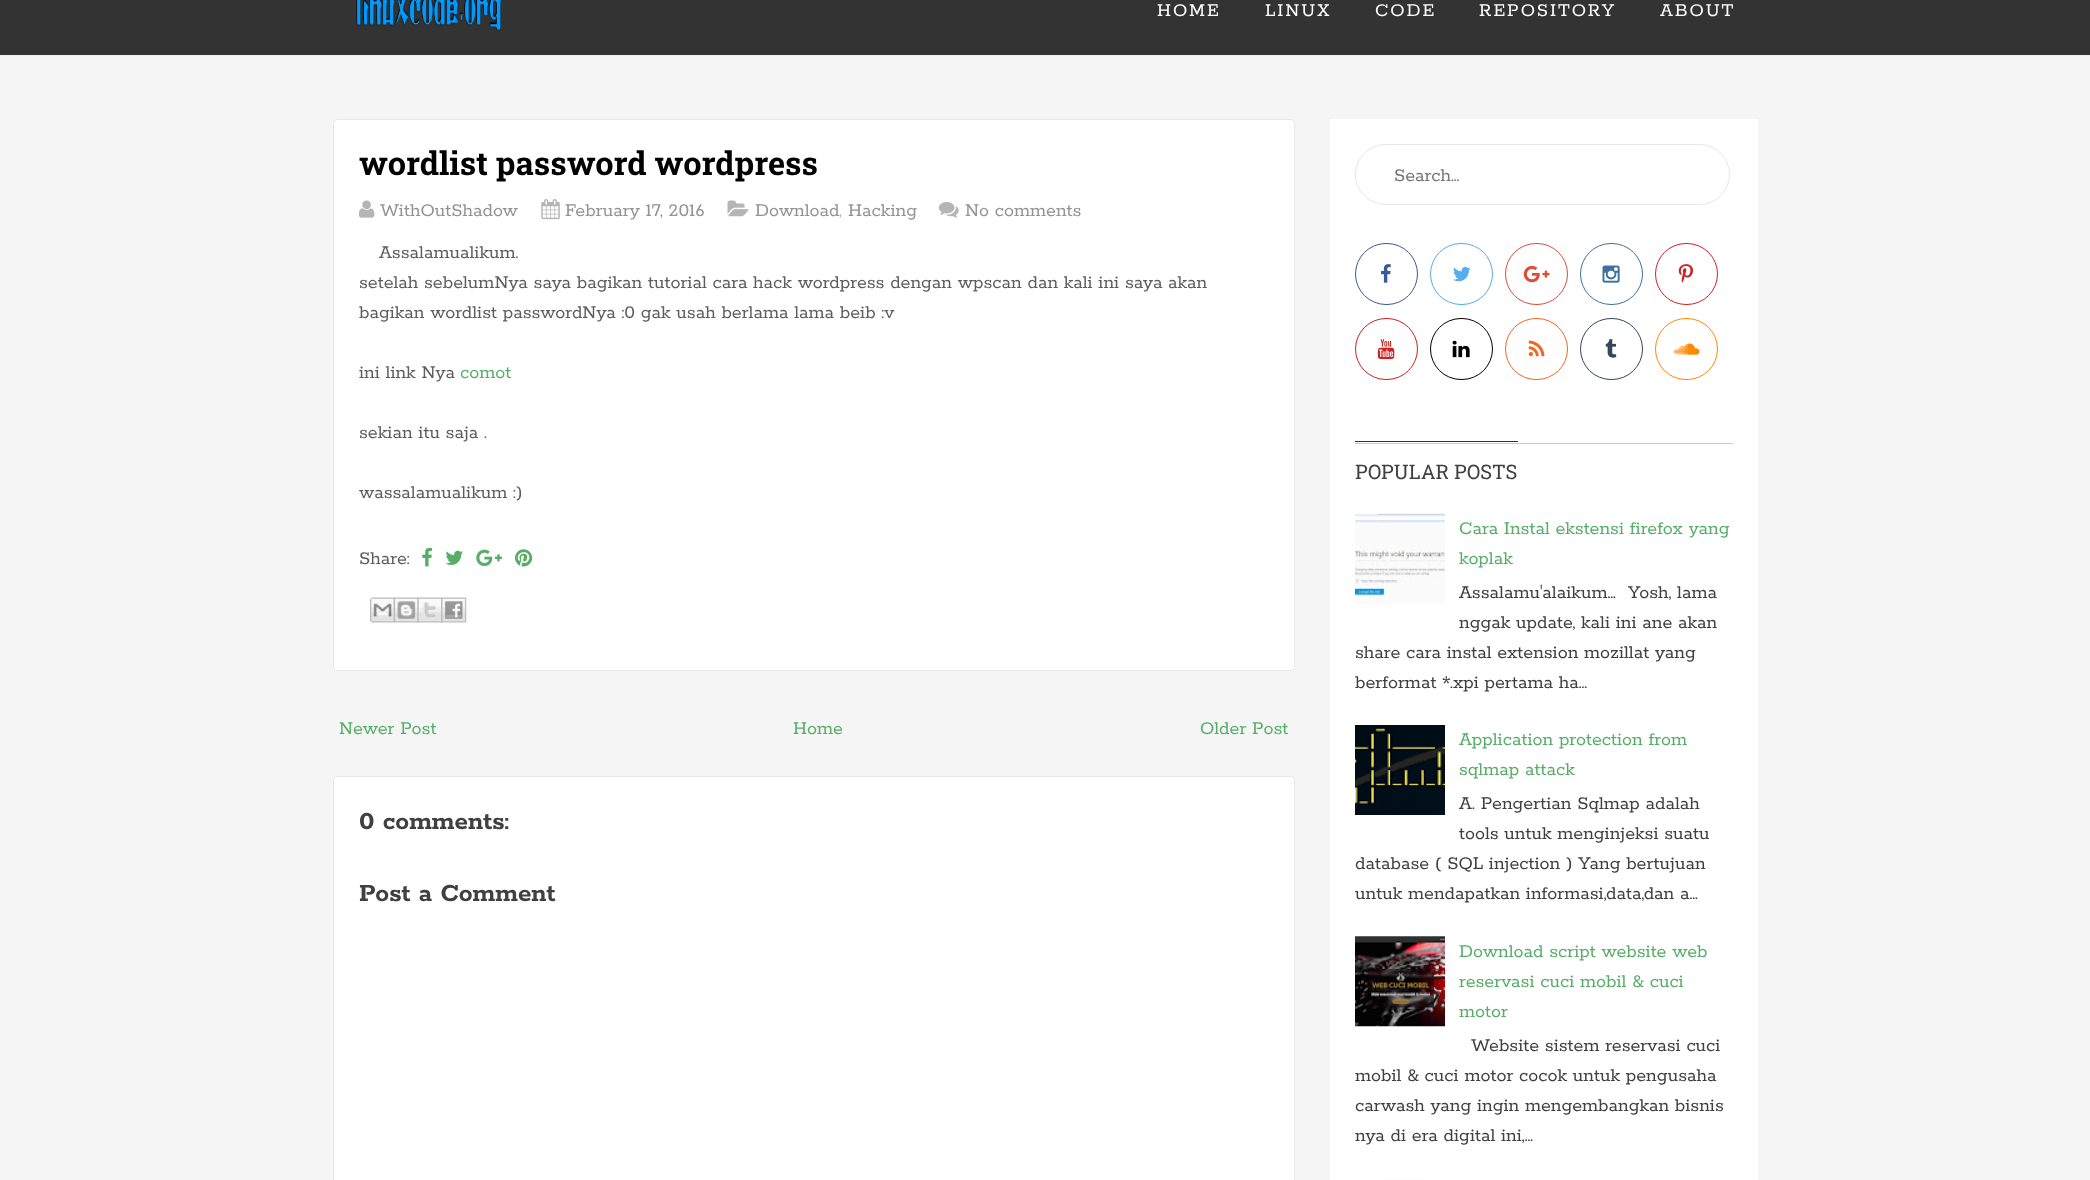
async function draw(canvas) {
	canvas.width = 2090;
	canvas.height = 1180;
	const c = canvas.getContext('2d');
	c.miterLimit = 4;
	c.fontKerning = 'normal';
	async function loadImage(src) {
		const img = new Image();
		img.src = src;
		await img.decode();
		return img;
	}

	c.fillStyle = '#f5f5f5';
	c.fillRect(0, 0, 2090, 1180);
	c.fillStyle = '#333';
	c.fillRect(0, 0, 2090, 55);
	c.fillStyle = '#eee';
	c.fillRect(0, 55, 2090, 1);
	c.drawImage(await loadImage('img1.png'), 356, 0, 146, 31);
	c.letterSpacing = '1.9px';
	c.font = '20px Rokkitt';
	c.fillStyle = '#fff';
	for (const [text, x, y] of [
		['HOME', 1157, 16],
		['LINUX', 1265, 16],
		['CODE', 1375, 16],
		['REPOSITORY', 1479, 16],
		['ABOUT', 1660, 16],
	]) {
		c.fillText(text, x, y);
	}
	c.beginPath();
	c.roundRect(333, 119, 962, 552, 4);
	c.fill();
	c.beginPath();
	c.roundRect(333.5, 119.5, 961, 551, 3.5);
	c.strokeStyle = '#00000017';
	c.stroke();
	c.letterSpacing = '0px';
	c.font = 'bold 32.5px Roboto Slab';
	c.fillStyle = '#000';
	c.fillText('wordlist password wordpress', 359, 175);
	c.drawImage(await loadImage('img2.png'), 359, 200, 16, 18);
	c.font = '20px Rokkitt';
	c.fillStyle = '#939393';
	c.fillText('WithOutShadow', 380, 216);
	c.drawImage(await loadImage('img3.png'), 541, 199, 19, 21);
	c.fillText('February 17, 2016', 565, 216);
	c.drawImage(await loadImage('img4.png'), 727, 200, 22, 17);
	c.fillText('Download', 755, 216);
	c.fillStyle = '#b5b5b5';
	c.fillText(',', 839, 216);
	c.fillStyle = '#939393';
	c.fillText('Hacking', 848, 216);
	c.drawImage(await loadImage('img5.png'), 938, 202, 21, 16);
	c.fillText('No comments', 965, 216);
	c.fillStyle = '#5d5d5d';
	for (const [text, x, y] of [
		['Assalamualikum.', 379, 258],
		['setelah sebelumNya saya bagikan tutorial cara hack wordpress dengan wpscan dan kali ini saya akan', 359, 288],
		['bagikan wordlist passwordNya :0 gak usah berlama lama beib :v', 359, 318],
		['ini link Nya', 359, 378],
	]) {
		c.fillText(text, x, y);
	}
	c.fillStyle = '#57ad68';
	c.fillText('comot', 460, 378);
	c.fillStyle = '#5d5d5d';
	for (const [text, x, y] of [
		['sekian itu saja .', 359, 438],
		['wassalamualikum :)', 359, 498],
		['Share:', 359, 564],
	]) {
		c.fillText(text, x, y);
	}
	c.drawImage(await loadImage('img6.png'), 422, 547, 10, 20);
	c.drawImage(await loadImage('img7.png'), 445, 550, 18, 15);
	c.drawImage(await loadImage('img8.png'), 476, 549, 26, 17);
	c.drawImage(await loadImage('img9.png'), 515, 549, 18, 18);
	c.drawImage(await loadImage('img10.png'), 370, 597, 25, 26);
	c.drawImage(await loadImage('img11.png'), 393, 597, 26, 26);
	c.drawImage(await loadImage('img12.png'), 417, 597, 26, 26);
	c.drawImage(await loadImage('img13.png'), 441, 597, 26, 26);
	c.fillStyle = '#57ad68';
	for (const [text, x, y] of [
		['Newer Post', 339, 734],
		['Home', 793, 734],
		['Older Post', 1200, 734],
	]) {
		c.fillText(text, x, y);
	}
	c.fillStyle = '#fff';
	c.beginPath();
	c.roundRect(333, 776, 962, 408, 4);
	c.fill();
	c.beginPath();
	c.roundRect(333.5, 776.5, 961, 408, 3.5);
	c.stroke();
	c.font = 'bold 27.5px Rokkitt';
	c.fillStyle = '#404040';
	c.fillText('0 comments:', 359, 829);
	c.fillText('Post a Comment', 359, 901);
	c.fillStyle = '#fff';
	c.fillRect(1330, 119, 428, 1061);
	c.beginPath();
	c.roundRect(1355.5, 144.5, 374, 60, 30);
	c.strokeStyle = '#e7e7e7';
	c.stroke();
	c.font = '20px Rokkitt';
	c.fillStyle = '#757575';
	c.fillText('Search...', 1394, 181);
	c.beginPath();
	c.roundRect(1355.5, 243.5, 62, 61, 30.5);
	c.strokeStyle = '#3b5998';
	c.stroke();
	c.drawImage(await loadImage('img14.png'), 1381, 264, 10, 19);
	c.beginPath();
	c.roundRect(1430.5, 243.5, 62, 61, 30.5);
	c.strokeStyle = '#55acee';
	c.stroke();
	c.drawImage(await loadImage('img15.png'), 1453, 267, 18, 15);
	c.beginPath();
	c.roundRect(1505.5, 243.5, 62, 61, 30.5);
	c.strokeStyle = '#dd4b39';
	c.stroke();
	c.drawImage(await loadImage('img16.png'), 1523, 265, 27, 18);
	c.beginPath();
	c.roundRect(1580.5, 243.5, 62, 61, 30.5);
	c.strokeStyle = '#3f729b';
	c.stroke();
	c.drawImage(await loadImage('img17.png'), 1602, 265, 18, 18);
	c.beginPath();
	c.roundRect(1655.5, 243.5, 62, 61, 30.5);
	c.strokeStyle = '#cc2127';
	c.stroke();
	c.drawImage(await loadImage('img18.png'), 1678, 264, 15, 19);
	c.beginPath();
	c.roundRect(1355.5, 318.5, 62, 61, 30.5);
	c.strokeStyle = '#cd201f';
	c.stroke();
	c.drawImage(await loadImage('img19.png'), 1377, 339, 18, 21);
	c.beginPath();
	c.roundRect(1430.5, 318.5, 62, 61, 30.5);
	c.strokeStyle = '#000';
	c.stroke();
	c.drawImage(await loadImage('img20.png'), 1452, 340, 18, 18);
	c.beginPath();
	c.roundRect(1505.5, 318.5, 62, 61, 30.5);
	c.strokeStyle = '#f26522';
	c.stroke();
	c.drawImage(await loadImage('img21.png'), 1528, 340, 17, 17);
	c.beginPath();
	c.roundRect(1580.5, 318.5, 62, 61, 30.5);
	c.strokeStyle = '#35465c';
	c.stroke();
	c.drawImage(await loadImage('img22.png'), 1605, 339, 12, 19);
	c.beginPath();
	c.roundRect(1655.5, 318.5, 62, 61, 30.5);
	c.strokeStyle = '#f80';
	c.stroke();
	c.drawImage(await loadImage('img23.png'), 1673, 343, 27, 12);
	c.fillStyle = '#ccc';
	c.fillRect(1355, 443, 378, 1);
	c.font = '20px Roboto Slab';
	c.fillStyle = '#404040';
	c.fillText('POPULAR POSTS', 1355, 479);
	c.fillStyle = '#333';
	c.fillRect(1355, 441, 163, 1);
	c.drawImage(await loadImage('img24.png'), 1355, 513, 90, 91);
	c.font = '20px Rokkitt';
	c.fillStyle = '#57ad68';
	c.fillText('Cara Instal ekstensi firefox yang', 1459, 534);
	c.fillText('koplak', 1459, 564);
	c.fillStyle = '#404040';
	for (const [text, x, y] of [
		['Assalamu\'alaikum...', 1459, 598],
		['Yosh, lama', 1628, 598],
		['nggak update, kali ini ane akan', 1459, 628],
		['share cara instal extension mozillat yang', 1355, 658],
		['berformat *.xpi pertama ha...', 1355, 688],
	]) {
		c.fillText(text, x, y);
	}
	c.drawImage(await loadImage('img25.png'), 1355, 725, 90, 90);
	c.fillStyle = '#57ad68';
	c.fillText('Application protection from', 1459, 745);
	c.fillText('sqlmap attack', 1459, 775);
	c.fillStyle = '#404040';
	for (const [text, x, y] of [
		['A. Pengertian Sqlmap adalah', 1459, 809],
		['tools untuk menginjeksi suatu', 1459, 839],
		['database ( SQL injection ) Yang bertujuan', 1355, 869],
		['untuk mendapatkan informasi,data,dan a...', 1355, 899],
	]) {
		c.fillText(text, x, y);
	}
	c.drawImage(await loadImage('img26.png'), 1355, 936, 90, 91);
	c.fillStyle = '#57ad68';
	for (const [text, x, y] of [
		['Download script website web', 1459, 957],
		['reservasi cuci mobil & cuci', 1459, 987],
		['motor', 1459, 1017],
	]) {
		c.fillText(text, x, y);
	}
	c.fillStyle = '#404040';
	for (const [text, x, y] of [
		['Website sistem reservasi cuci', 1471, 1051],
		['mobil & cuci motor cocok untuk pengusaha', 1355, 1081],
		['carwash yang ingin mengembangkan bisnis', 1355, 1111],
		['nya di era digital ini,...', 1355, 1141],
	]) {
		c.fillText(text, x, y);
	}
	c.drawImage(await loadImage('img27.png'), 1385, 1178, 40, 2);
}

draw(document.querySelector('canvas'));
